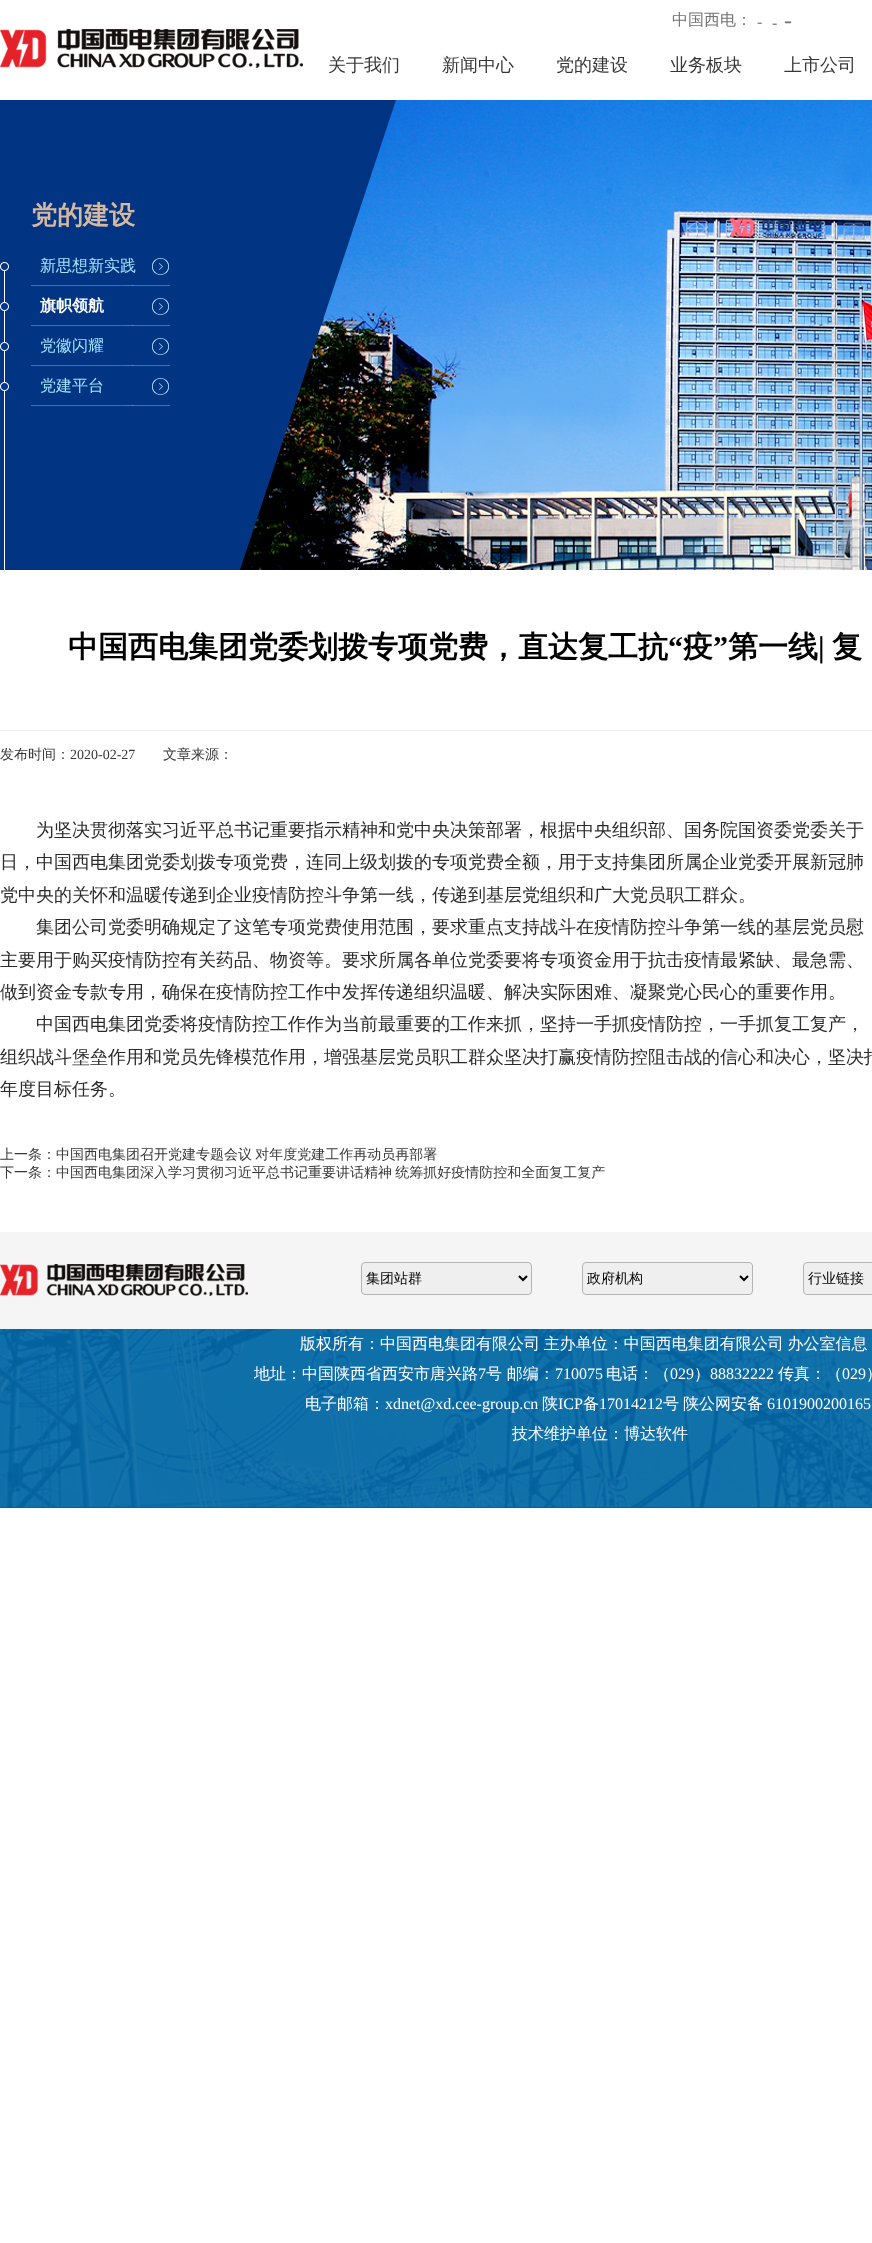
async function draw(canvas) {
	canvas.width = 872;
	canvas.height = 2243;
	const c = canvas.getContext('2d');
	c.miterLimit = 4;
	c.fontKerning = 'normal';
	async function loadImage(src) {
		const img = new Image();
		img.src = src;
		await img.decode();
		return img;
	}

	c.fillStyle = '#fff';
	c.fillRect(0, 0, 872, 2243);
	c.drawImage(await loadImage('img1.png'), 0, 29, 303, 39);
	c.font = '500 16px WenQuanYi Zen Hei';
	c.fillStyle = '#747474';
	c.fillText('中国西电：', 672, 25);
	c.font = '16px Liberation Serif';
	c.fillText('-', 757, 27);
	c.fillText('-', 772, 28);
	c.font = '24px Liberation Serif';
	c.fillText('-', 784, 28);
	c.font = '500 18px WenQuanYi Zen Hei';
	c.fillStyle = '#373737';
	for (const [text, x, y] of [
		['关于我们', 328, 71],
		['新闻中心', 442, 71],
		['党的建设', 556, 71],
		['业务板块', 670, 71],
		['上市公司', 784, 71],
	]) {
		c.fillText(text, x, y);
	}
	c.drawImage(await loadImage('img2.png'), 0, 100, 872, 470);
	c.font = 'bold 26px WenQuanYi Zen Hei';
	c.fillStyle = '#d6b99f';
	c.fillText('党的建设', 31, 224);
	c.fillStyle = '#fff';
	c.fillRect(4, 262, 1, 308);
	c.drawImage(await loadImage('img3.png'), 0, 258, 170, 28);
	c.font = '500 16px WenQuanYi Zen Hei';
	c.fillStyle = '#a2e5fe';
	c.fillText('新思想新实践', 40, 271);
	c.drawImage(await loadImage('img4.png'), 0, 298, 170, 28);
	c.font = 'bold 16px WenQuanYi Zen Hei';
	c.fillStyle = '#fff';
	c.fillText('旗帜领航', 40, 311);
	c.drawImage(await loadImage('img4.png'), 0, 338, 170, 28);
	c.font = '500 16px WenQuanYi Zen Hei';
	c.fillStyle = '#a2e5fe';
	c.fillText('党徽闪耀', 40, 351);
	c.drawImage(await loadImage('img4.png'), 0, 378, 170, 28);
	c.fillText('党建平台', 40, 391);
	c.fillStyle = '#eee';
	c.fillRect(0, 730, 872, 1);
	c.font = 'bold 30px WenQuanYi Zen Hei';
	c.fillStyle = '#000';
	c.fillText('中国西电集团党委划拨专项党费，直达复工抗', 68, 657);
	c.font = 'bold 30px Liberation Serif';
	c.fillText('“', 668, 657);
	c.font = 'bold 30px WenQuanYi Zen Hei';
	c.fillText('疫', 683, 657);
	c.font = 'bold 30px Liberation Serif';
	c.fillText('”', 713, 657);
	c.font = 'bold 30px WenQuanYi Zen Hei';
	c.fillText('第一线', 728, 657);
	c.font = 'bold 30px Liberation Serif';
	c.fillText('|', 818, 657);
	c.font = 'bold 30px WenQuanYi Zen Hei';
	c.fillText('复', 832, 657);
	c.font = '500 14px WenQuanYi Zen Hei';
	c.fillStyle = '#373737';
	c.fillText('发布时间：', 0, 759);
	c.font = '14px Liberation Serif';
	c.fillText('2020-02-27', 70, 759);
	c.font = '500 14px WenQuanYi Zen Hei';
	c.fillText('文章来源：', 163, 759);
	c.font = '500 18px WenQuanYi Zen Hei';
	c.fillStyle = '#2a2a2a';
	for (const [text, x, y] of [
		['为坚决贯彻落实习近平总书记重要指示精神和党中央决策部署，根据中央组织部、国务院国资委党委关于', 36, 836],
		['日，中国西电集团党委划拨专项党费，连同上级划拨的专项党费全额，用于支持集团所属企业党委开展新冠肺', 0, 868],
		['党中央的关怀和温暖传递到企业疫情防控斗争第一线，传递到基层党组织和广大党员职工群众。', 0, 901],
		['集团公司党委明确规定了这笔专项党费使用范围，要求重点支持战斗在疫情防控斗争第一线的基层党员慰', 36, 933],
		['主要用于购买疫情防控有关药品、物资等。要求所属各单位党委要将专项资金用于抗击疫情最紧缺、最急需、', 0, 966],
		['做到资金专款专用，确保在疫情防控工作中发挥传递组织温暖、解决实际困难、凝聚党心民心的重要作用。', 0, 998],
		['中国西电集团党委将疫情防控工作作为当前最重要的工作来抓，坚持一手抓疫情防控，一手抓复工复产，', 36, 1030],
		['组织战斗堡垒作用和党员先锋模范作用，增强基层党员职工群众坚决打赢疫情防控阻击战的信心和决心，坚决打', 0, 1063],
		['年度目标任务。', 0, 1095],
	]) {
		c.fillText(text, x, y);
	}
	c.font = '500 14px WenQuanYi Zen Hei';
	c.fillStyle = '#373737';
	c.fillText('上一条：', 0, 1159);
	c.wordSpacing = '-1px';
	c.fillText('中国西电集团召开党建专题会议 对年度党建工作再动员再部署', 56, 1159);
	c.wordSpacing = '0px';
	c.fillText('下一条：', 0, 1177);
	c.wordSpacing = '-1px';
	c.fillText('中国西电集团深入学习贯彻习近平总书记重要讲话精神 统筹抓好疫情防控和全面复工复产', 56, 1177);
	c.fillStyle = '#f5f5f5';
	c.fillRect(0, 1232, 872, 97);
	c.drawImage(await loadImage('img5.png'), 0, 1264, 248, 32);
	c.fillStyle = '#efefef';
	c.beginPath();
	c.roundRect(361.5, 1262.5, 170, 32, 3.5);
	c.fill();
	c.strokeStyle = '#b4b4b4';
	c.stroke();
	c.beginPath();
	c.moveTo(519, 1276);
	c.lineTo(523, 1280);
	c.lineTo(527, 1276);
	c.strokeStyle = '#000';
	c.lineWidth = 2;
	c.stroke();
	c.wordSpacing = '0px';
	c.fillStyle = '#000';
	c.fillText('集团站群', 366, 1283);
	c.fillStyle = '#efefef';
	c.beginPath();
	c.roundRect(582.5, 1262.5, 170, 32, 3.5);
	c.fill();
	c.strokeStyle = '#b4b4b4';
	c.lineWidth = 1;
	c.stroke();
	c.beginPath();
	c.moveTo(740, 1276);
	c.lineTo(744, 1280);
	c.lineTo(748, 1276);
	c.strokeStyle = '#000';
	c.lineWidth = 2;
	c.stroke();
	c.fillStyle = '#000';
	c.fillText('政府机构', 587, 1283);
	c.fillStyle = '#efefef';
	c.beginPath();
	c.roundRect(803.5, 1262.5, 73, 32, 3.5);
	c.fill();
	c.strokeStyle = '#b4b4b4';
	c.lineWidth = 1;
	c.stroke();
	c.fillStyle = '#000';
	c.fillText('行业链接', 808, 1283);
	c.drawImage(await loadImage('img6.png'), 0, 1329, 872, 179);
	c.wordSpacing = '-1px';
	c.font = '500 16px WenQuanYi Zen Hei';
	c.fillStyle = '#fff';
	c.fillText('版权所有：中国西电集团有限公司 主办单位：中国西电集团有限公司 办公室信息', 300, 1349);
	c.wordSpacing = '0px';
	c.fillText('地址：中国陕西省西安市唐兴路', 254, 1379);
	c.font = '16px Liberation Serif';
	c.fillText('7', 478, 1379);
	c.font = '500 16px WenQuanYi Zen Hei';
	c.fillText('号 邮编：', 486, 1379);
	c.font = '16px Liberation Serif';
	c.fillText('710075', 555, 1379);
	c.font = '500 16px WenQuanYi Zen Hei';
	c.fillText('电话：（', 606, 1379);
	c.font = '16px Liberation Serif';
	c.fillText('029', 670, 1379);
	c.font = '500 16px WenQuanYi Zen Hei';
	c.fillText('）', 694, 1379);
	c.font = '16px Liberation Serif';
	c.fillText('88832222', 710, 1379);
	c.font = '500 16px WenQuanYi Zen Hei';
	c.fillText('传真：（', 778, 1379);
	c.font = '16px Liberation Serif';
	c.fillText('029', 842, 1379);
	c.font = '500 16px WenQuanYi Zen Hei';
	c.fillText('）', 866, 1379);
	c.fillText('电子邮箱：', 305, 1409);
	c.font = '16px Liberation Serif';
	c.fillText('xdnet@xd.cee-group.cn', 385, 1409);
	c.font = '500 16px WenQuanYi Zen Hei';
	c.fillText('陕', 542, 1409);
	c.font = '16px Liberation Serif';
	c.fillText('ICP', 558, 1409);
	c.font = '500 16px WenQuanYi Zen Hei';
	c.fillText('备', 583, 1409);
	c.font = '16px Liberation Serif';
	c.fillText('17014212', 599, 1409);
	c.font = '500 16px WenQuanYi Zen Hei';
	c.fillText('号', 663, 1409);
	c.fillText('陕公网安备', 683, 1409);
	c.font = '16px Liberation Serif';
	c.fillText('6101900200165', 767, 1409);
	c.font = '500 16px WenQuanYi Zen Hei';
	c.fillText('技术维护单位：博达软件', 512, 1439);
}

draw(document.querySelector('canvas'));
